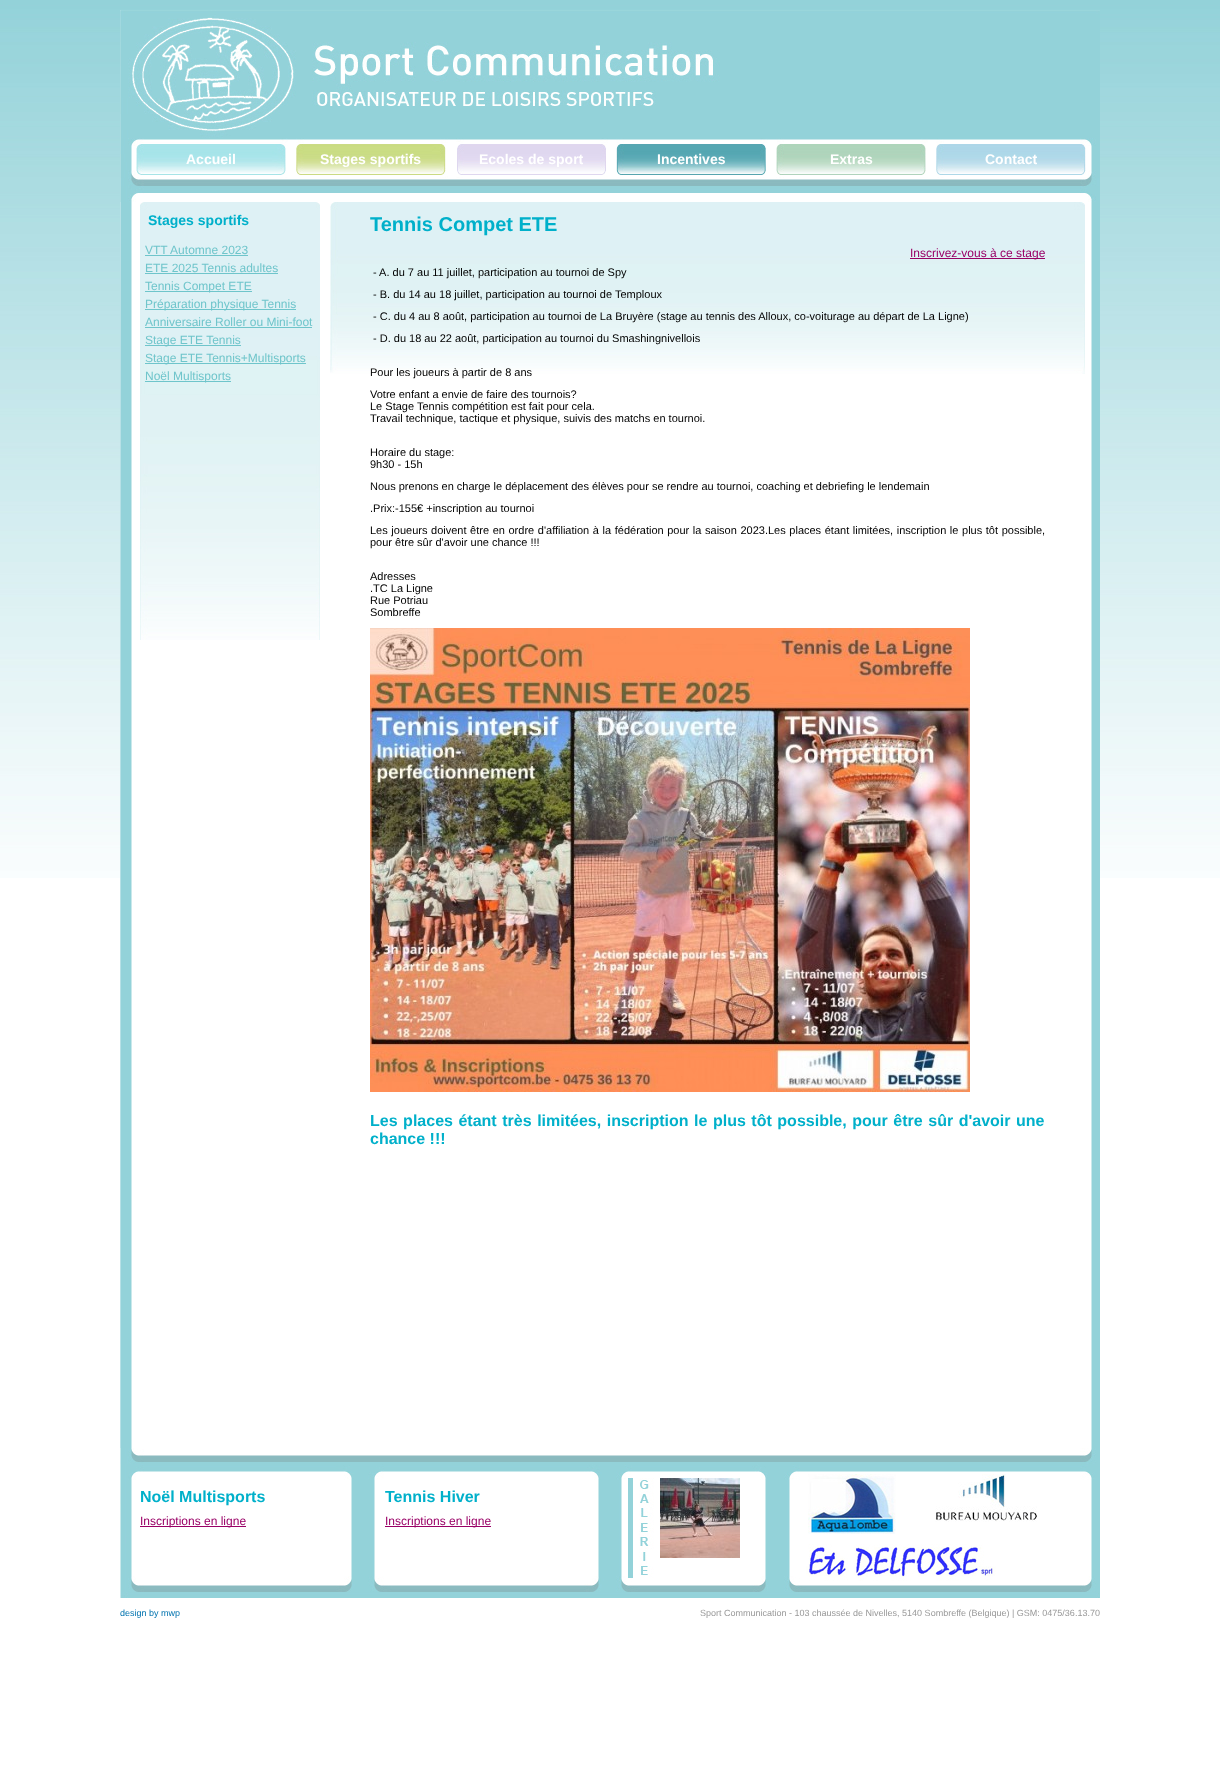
async function draw(canvas) {
	canvas.width = 1220;
	canvas.height = 1782;
	const c = canvas.getContext('2d');
	c.miterLimit = 4;
	c.fontKerning = 'normal';
	async function loadImage(src) {
		const img = new Image();
		img.src = src;
		await img.decode();
		return img;
	}

	c.fillStyle = '#fff';
	c.fillRect(0, 0, 1220, 1782);
	c.drawImage(await loadImage('img1.png'), 0, 0, 1220, 878);
	c.drawImage(await loadImage('img2.png'), 120, 202, 980, 1396);
	c.drawImage(await loadImage('img3.png'), 120, 10, 980, 192);
	c.drawImage(await loadImage('img4.png'), 136, 144, 150, 31);
	c.font = 'bold 14px Liberation Sans';
	c.fillText('Accueil', 186, 164);
	c.drawImage(await loadImage('img5.png'), 296, 144, 150, 31);
	c.fillText('Stages sportifs', 320, 164);
	c.drawImage(await loadImage('img6.png'), 457, 144, 149, 31);
	c.fillText('Ecoles de sport', 479, 164);
	c.drawImage(await loadImage('img7.png'), 616, 144, 150, 31);
	c.fillText('Incentives', 657, 164);
	c.drawImage(await loadImage('img8.png'), 776, 143, 150, 32);
	c.fillText('Extras', 830, 164);
	c.drawImage(await loadImage('img9.png'), 936, 144, 150, 31);
	c.fillText('Contact', 985, 164);
	c.drawImage(await loadImage('img10.png'), 140, 202, 180, 438);
	c.fillStyle = '#00b0ca';
	c.fillText('Stages sportifs', 148, 225);
	c.font = '12px Liberation Sans';
	c.fillStyle = '#6fc5cb';
	c.fillText('VTT Automne 2023', 145, 254);
	c.fillRect(145, 255, 103, 1);
	c.fillText('ETE 2025 Tennis adultes', 145, 272);
	c.fillRect(145, 273, 133, 1);
	c.fillRect(145, 291, 107, 1);
	c.fillText('Tennis Compet ETE', 145, 290);
	c.fillRect(145, 309, 151, 1);
	c.fillText('Préparation physique Tennis', 145, 308);
	c.fillText('Anniversaire Roller ou Mini-foot', 145, 326);
	c.fillRect(145, 327, 167, 1);
	c.fillRect(145, 345, 96, 1);
	c.fillText('Stage ETE Tennis', 145, 344);
	c.fillRect(145, 363, 161, 1);
	c.fillText('Stage ETE Tennis+Multisports', 145, 362);
	c.fillRect(145, 381, 86, 1);
	c.fillText('Noël Multisports', 145, 380);
	c.drawImage(await loadImage('img11.png'), 330, 202, 755, 172);
	c.font = 'bold 20px Liberation Sans';
	c.fillStyle = '#00b0ca';
	c.fillText('Tennis Compet ETE', 370, 231);
	c.fillStyle = '#906';
	c.fillRect(910, 258, 135, 1);
	c.font = '12px Liberation Sans';
	c.fillText('Inscrivez-vous à ce stage', 910, 257);
	c.font = '11px Liberation Sans';
	c.fillStyle = '#000';
	for (const [text, x, y] of [
		['- A. du 7 au 11 juillet, participation au tournoi de Spy', 373, 276],
		['- B. du 14 au 18 juillet, participation au tournoi de Temploux', 373, 298],
		['- C. du 4 au 8 août, participation au tournoi de La Bruyère (stage au tennis des Alloux, co-voiturage au départ de La Ligne)', 373, 320],
		['- D. du 18 au 22 août, participation au tournoi du Smashingnivellois', 373, 342],
		['Pour les joueurs à partir de 8 ans', 370, 376],
		['Votre enfant a envie de faire des tournois?', 370, 398],
		['Le Stage Tennis compétition est fait pour cela.', 370, 410],
		['Travail technique, tactique et physique, suivis des matchs en tournoi.', 370, 422],
		['Horaire du stage:', 370, 456],
		['9h30 - 15h', 370, 468],
		['Nous prenons en charge le déplacement des élèves pour se rendre au tournoi, coaching et debriefing le lendemain', 370, 490],
		['.Prix:-155€ +inscription au tournoi', 370, 512],
	]) {
		c.fillText(text, x, y);
	}
	c.wordSpacing = '0.55px';
	c.fillText('Les joueurs doivent être en ordre d\'affiliation à la fédération pour la saison 2023.Les places étant limitées, inscription le plus tôt possible,', 370, 534);
	c.wordSpacing = '0px';
	for (const [text, x, y] of [
		['pour être sûr d\'avoir une chance !!!', 370, 546],
		['Adresses', 370, 580],
		['.TC La Ligne', 370, 592],
		['Rue Potriau', 370, 604],
		['Sombreffe', 370, 616],
	]) {
		c.fillText(text, x, y);
	}
	c.drawImage(await loadImage('img12.png'), 370, 628, 600, 464);
	c.wordSpacing = '1.1px';
	c.font = 'bold 16px Liberation Sans';
	c.fillStyle = '#00b0ca';
	c.fillText('Les places étant très limitées, inscription le plus tôt possible, pour être sûr d\'avoir une', 370, 1126);
	c.wordSpacing = '0px';
	c.fillText('chance !!!', 370, 1144);
	c.drawImage(await loadImage('img13.png'), 120, 1448, 979, 150);
	c.fillText('Noël Multisports', 140, 1502);
	c.fillStyle = '#906';
	c.fillRect(140, 1526, 106, 1);
	c.font = '12px Liberation Sans';
	c.fillText('Inscriptions en ligne', 140, 1525);
	c.font = 'bold 16px Liberation Sans';
	c.fillStyle = '#00b0ca';
	c.fillText('Tennis Hiver', 385, 1502);
	c.fillStyle = '#906';
	c.fillRect(385, 1526, 106, 1);
	c.font = '12px Liberation Sans';
	c.fillText('Inscriptions en ligne', 385, 1525);
	c.drawImage(await loadImage('img14.png'), 628, 1478, 26, 100);
	c.drawImage(await loadImage('img15.png'), 660, 1478, 80, 80);
	c.drawImage(await loadImage('img16.png'), 808, 1474, 88, 60);
	c.drawImage(await loadImage('img17.png'), 935, 1474, 102, 48);
	c.drawImage(await loadImage('img18.png'), 806, 1544, 190, 37);
	c.font = '9px Liberation Sans';
	c.fillStyle = '#0073af';
	c.fillText('design by mwp', 120, 1616);
	c.fillStyle = '#999';
	c.fillText('Sport Communication - 103 chaussée de Nivelles, 5140 Sombreffe (Belgique) | GSM: 0475/36.13.70', 700, 1616);
}

draw(document.querySelector('canvas'));
